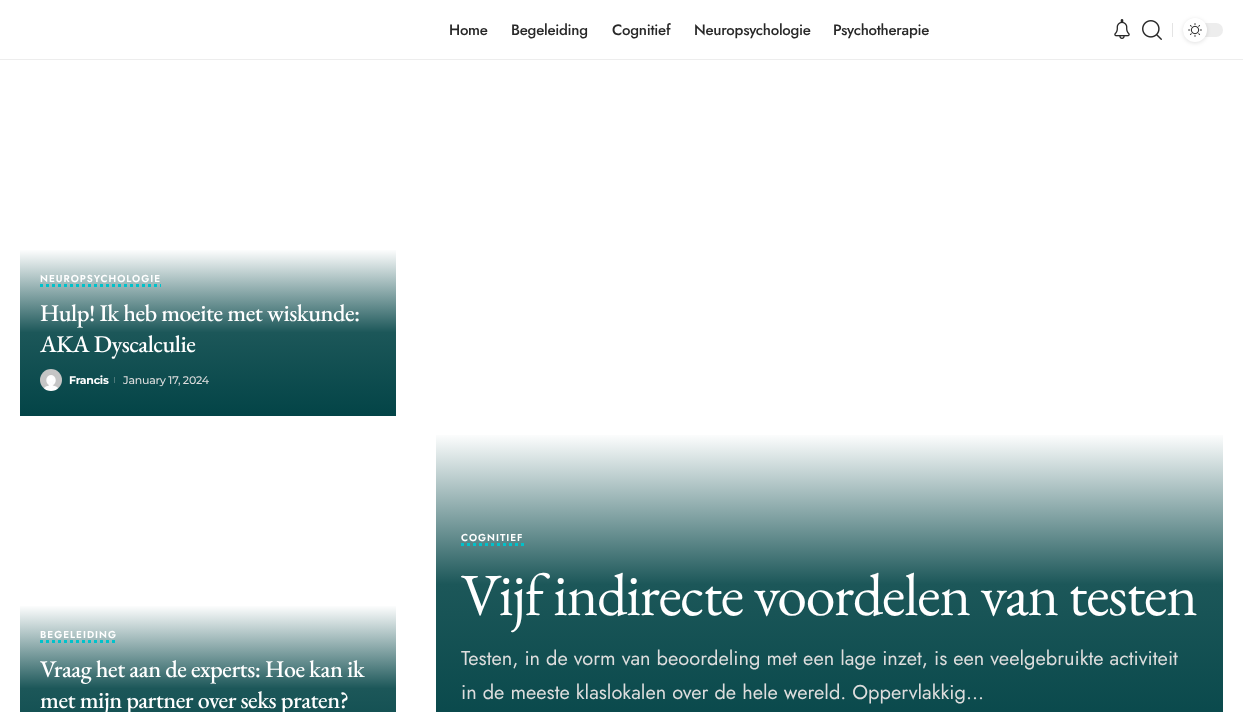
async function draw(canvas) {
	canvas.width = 1243;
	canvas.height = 712;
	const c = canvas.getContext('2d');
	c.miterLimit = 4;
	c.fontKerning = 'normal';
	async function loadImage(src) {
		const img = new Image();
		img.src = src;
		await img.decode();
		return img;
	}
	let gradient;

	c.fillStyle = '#fff';
	c.fillRect(0, 0, 1243, 712);
	c.letterSpacing = '-0.25px';
	c.font = '500 15px Jost';
	c.fillStyle = '#282828';
	for (const [text, x, y] of [
		['Home', 449, 35],
		['Begeleiding', 511, 35],
		['Cognitief', 612, 35],
		['Neuropsychologie', 694, 35],
		['Psychotherapie', 833, 35],
	]) {
		c.fillText(text, x, y);
	}
	c.drawImage(await loadImage('img1.png'), 1114, 19, 16, 20);
	c.drawImage(await loadImage('img2.png'), 1142, 20, 20, 20);
	c.fillStyle = '#e4e4e4';
	c.fillRect(1172, 23, 1, 14);
	c.fillStyle = '#ededed';
	c.beginPath();
	c.roundRect(1183, 23, 40, 14, 7);
	c.fill();
	c.fillStyle = '#0000001f';
	c.filter = 'blur(2px)';
	c.beginPath();
	c.roundRect(1183, 19, 24, 24, 12);
	c.fill();
	c.filter = 'none';
	c.fillStyle = '#fff';
	c.beginPath();
	c.arc(1195, 30, 12, 0, 2 * Math.PI);
	c.fill();
	c.drawImage(await loadImage('img3.png'), 1188, 23, 14, 14);
	c.fillStyle = '#ededed';
	c.fillRect(0, 59, 1243, 1);
	gradient = c.createLinearGradient(208, 416, 208, 249);
	gradient.addColorStop(0, '#034447');
	gradient.addColorStop(0.5, '#1c5759');
	gradient.addColorStop(1, '#fff');
	c.fillStyle = gradient;
	c.fillRect(20, 250, 376, 166);
	c.beginPath();
	c.moveTo(40, 285.5);
	c.lineTo(161, 285.5);
	c.strokeStyle = '#00c2cb';
	c.lineWidth = 3;
	c.setLineDash([3, 3]);
	c.stroke();
	c.letterSpacing = '1px';
	c.font = '600 10px Jost';
	c.fillStyle = '#fff';
	c.fillText('NEUROPSYCHOLOGIE', 40, 282);
	c.letterSpacing = '-0.5px';
	c.font = '500 24px EB Garamond';
	c.fillText('Hulp! Ik heb moeite met wiskunde:', 40, 321);
	c.fillText('AKA Dyscalculie', 40, 352);
	c.drawImage(await loadImage('img4.png'), 40, 369, 22, 22);
	c.letterSpacing = '-0.25px';
	c.font = 'bold 11px Montserrat';
	c.fillText('Francis', 69, 384);
	c.fillStyle = '#4c7879';
	c.fillRect(114, 377, 1, 6);
	c.font = '500 11px Montserrat';
	c.fillStyle = '#ddd';
	c.fillText('January 17, 2024', 123, 384);
	gradient = c.createLinearGradient(208, 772, 208, 605);
	gradient.addColorStop(0, '#034447');
	gradient.addColorStop(0.5, '#1c5759');
	gradient.addColorStop(1, '#fff');
	c.fillStyle = gradient;
	c.fillRect(20, 606, 376, 106);
	c.beginPath();
	c.moveTo(40, 641.5);
	c.lineTo(117, 641.5);
	c.stroke();
	c.letterSpacing = '1px';
	c.font = '600 10px Jost';
	c.fillStyle = '#fff';
	c.fillText('BEGELEIDING', 40, 638);
	c.letterSpacing = '-0.5px';
	c.font = '500 24px EB Garamond';
	c.fillText('Vraag het aan de experts: Hoe kan ik', 40, 677);
	c.fillText('met mijn partner over seks praten?', 40, 708);
	gradient = c.createLinearGradient(830, 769, 830, 433);
	gradient.addColorStop(0, '#034447');
	gradient.addColorStop(0.55, '#1c5759');
	gradient.addColorStop(1, '#fff');
	c.fillStyle = gradient;
	c.fillRect(436, 435, 787, 277);
	c.beginPath();
	c.moveTo(461, 544.5);
	c.lineTo(524, 544.5);
	c.stroke();
	c.letterSpacing = '1px';
	c.font = '600 10px Jost';
	c.fillStyle = '#fff';
	c.fillText('COGNITIEF', 461, 541);
	c.letterSpacing = '-1.25px';
	c.font = '60px EB Garamond';
	c.fillText('Vijf indirecte voordelen van testen', 461, 615);
	c.letterSpacing = '0px';
	c.font = '20px Jost';
	c.fillStyle = '#ddd';
	c.fillText('Testen, in de vorm van beoordeling met een lage inzet, is een veelgebruikte activiteit', 461, 665);
	c.fillText('in de meeste klaslokalen over de hele wereld. Oppervlakkig…', 461, 699);
}

draw(document.querySelector('canvas'));
